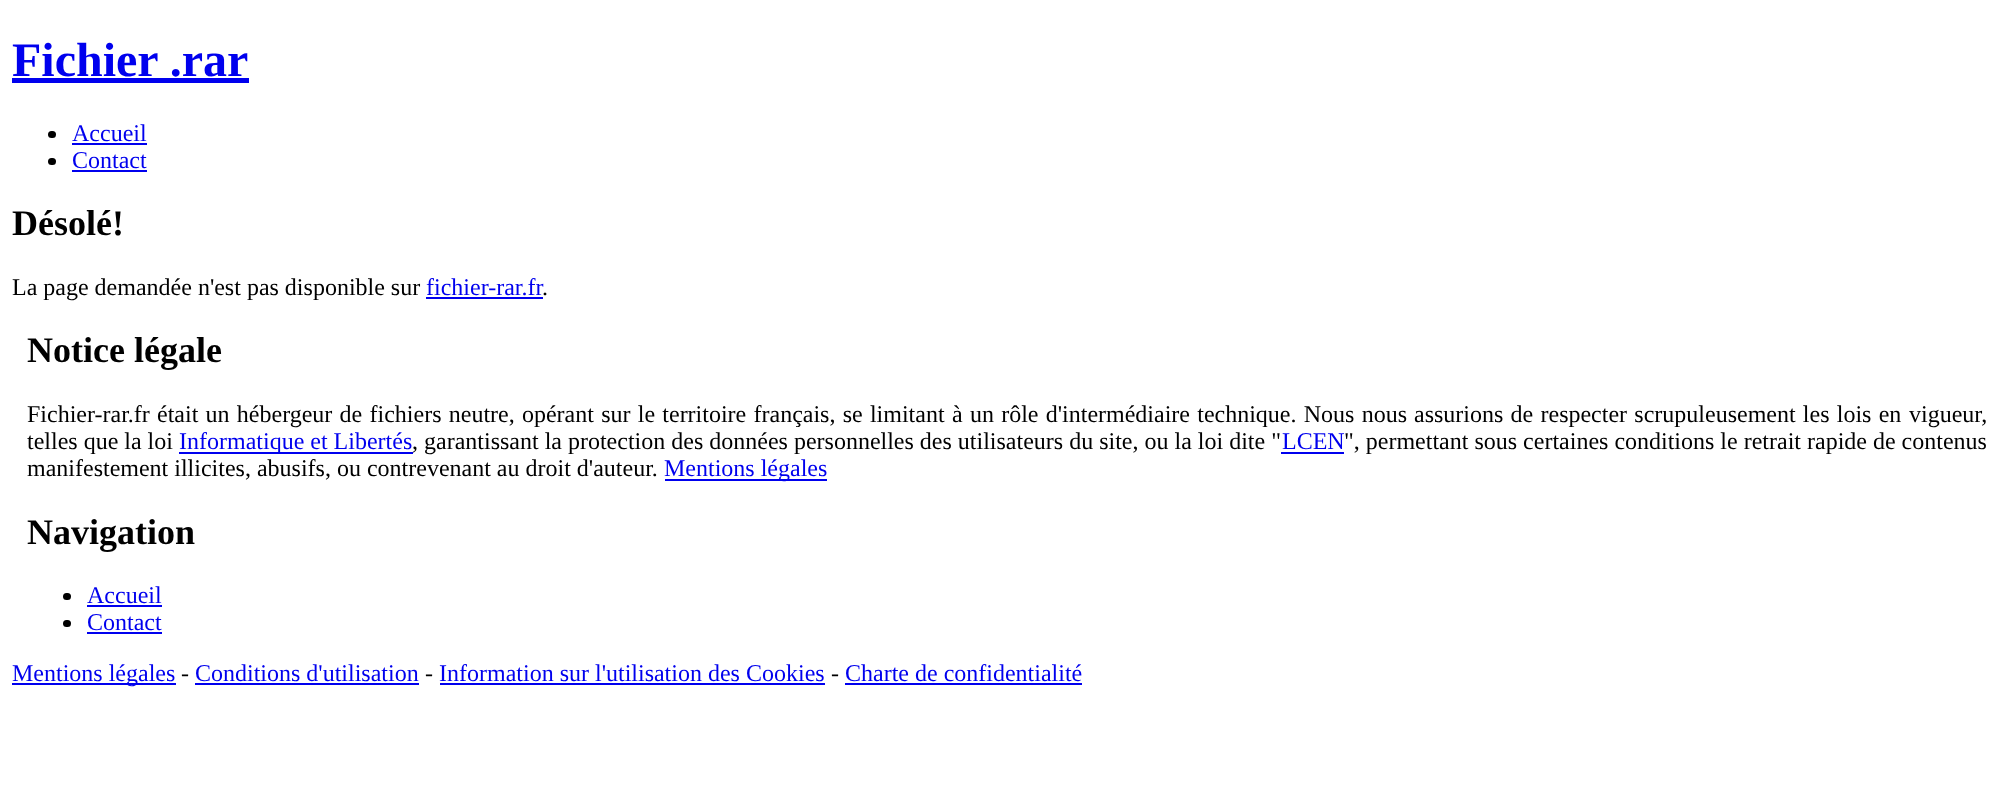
async function draw(canvas) {
	canvas.width = 1999;
	canvas.height = 795;
	const c = canvas.getContext('2d');
	c.miterLimit = 4;
	c.fontKerning = 'normal';

	c.fillStyle = '#fff';
	c.fillRect(0, 0, 1999, 795);
	c.font = 'bold 48px Liberation Serif';
	c.fillStyle = '#00e';
	c.fillText('Fichier .rar', 12, 76);
	c.fillRect(12, 78, 237, 5);
	c.fillStyle = '#000';
	c.beginPath();
	c.roundRect(48, 131, 8, 7, 3.5);
	c.fill();
	c.font = '24px Liberation Serif';
	c.fillStyle = '#00e';
	c.fillText('Accueil', 72, 141);
	c.fillRect(72, 143, 75, 2);
	c.fillStyle = '#000';
	c.beginPath();
	c.roundRect(48, 158, 8, 7, 3.5);
	c.fill();
	c.fillStyle = '#00e';
	c.fillText('Contact', 72, 168);
	c.fillRect(72, 170, 75, 2);
	c.font = 'bold 36px Liberation Serif';
	c.fillStyle = '#000';
	c.fillText('Désolé!', 12, 235);
	c.font = '24px Liberation Serif';
	c.fillText('La page demandée n\'est pas disponible sur', 12, 295);
	c.fillStyle = '#00e';
	c.fillText('fichier-rar.fr', 426, 295);
	c.fillRect(426, 297, 117, 2);
	c.fillStyle = '#000';
	c.fillText('.', 542, 295);
	c.font = 'bold 36px Liberation Serif';
	c.fillText('Notice légale', 27, 362);
	c.wordSpacing = '1.25px';
	c.font = '24px Liberation Serif';
	for (const [text, x, y] of [
		['Fichier-rar.fr était un hébergeur de fichiers neutre, opérant sur le territoire français, se limitant', 27, 422],
		['à un rôle d\'intermédiaire technique. Nous nous', 952, 422],
		['assurions de respecter scrupuleusement les lois en', 1414, 422],
	]) {
		c.fillText(text, x, y);
	}
	c.wordSpacing = '0px';
	c.fillText('vigueur,', 1909, 422);
	c.fillText('telles que la loi', 27, 449);
	c.fillStyle = '#00e';
	c.fillRect(179, 452, 234, 2);
	c.fillText('Informatique et Libertés', 179, 449);
	c.fillStyle = '#000';
	c.fillText(', garantissant la protection des données personnelles des utilisateurs du site, ou la loi dite "', 412, 449);
	c.fillStyle = '#00e';
	c.fillText('LCEN', 1282, 449);
	c.fillRect(1281, 452, 63, 2);
	c.fillStyle = '#000';
	c.fillText('", permettant sous certaines conditions le retrait rapide de contenus', 1344, 449);
	c.fillText('manifestement illicites, abusifs, ou contrevenant au droit d\'auteur.', 27, 476);
	c.fillStyle = '#00e';
	c.fillRect(665, 479, 162, 2);
	c.fillText('Mentions légales', 664, 476);
	c.font = 'bold 36px Liberation Serif';
	c.fillStyle = '#000';
	c.fillText('Navigation', 27, 544);
	c.beginPath();
	c.roundRect(63, 593, 8, 7, 3.5);
	c.fill();
	c.font = '24px Liberation Serif';
	c.fillStyle = '#00e';
	c.fillText('Accueil', 87, 603);
	c.fillRect(87, 605, 75, 2);
	c.fillStyle = '#000';
	c.beginPath();
	c.roundRect(63, 620, 8, 7, 3.5);
	c.fill();
	c.fillStyle = '#00e';
	c.fillText('Contact', 87, 630);
	c.fillRect(87, 632, 75, 2);
	c.fillRect(12, 683, 164, 2);
	c.fillText('Mentions légales', 12, 681);
	c.fillStyle = '#000';
	c.fillText('-', 181, 681);
	c.fillStyle = '#00e';
	c.fillText('Conditions d\'utilisation', 195, 681);
	c.fillRect(195, 683, 224, 2);
	c.fillStyle = '#000';
	c.fillText('-', 425, 681);
	c.fillStyle = '#00e';
	c.fillText('Information sur l\'utilisation des Cookies', 439, 681);
	c.fillRect(440, 683, 385, 2);
	c.fillStyle = '#000';
	c.fillText('-', 831, 681);
	c.fillStyle = '#00e';
	c.fillText('Charte de confidentialité', 845, 681);
	c.fillRect(845, 683, 237, 2);
}

draw(document.querySelector('canvas'));
